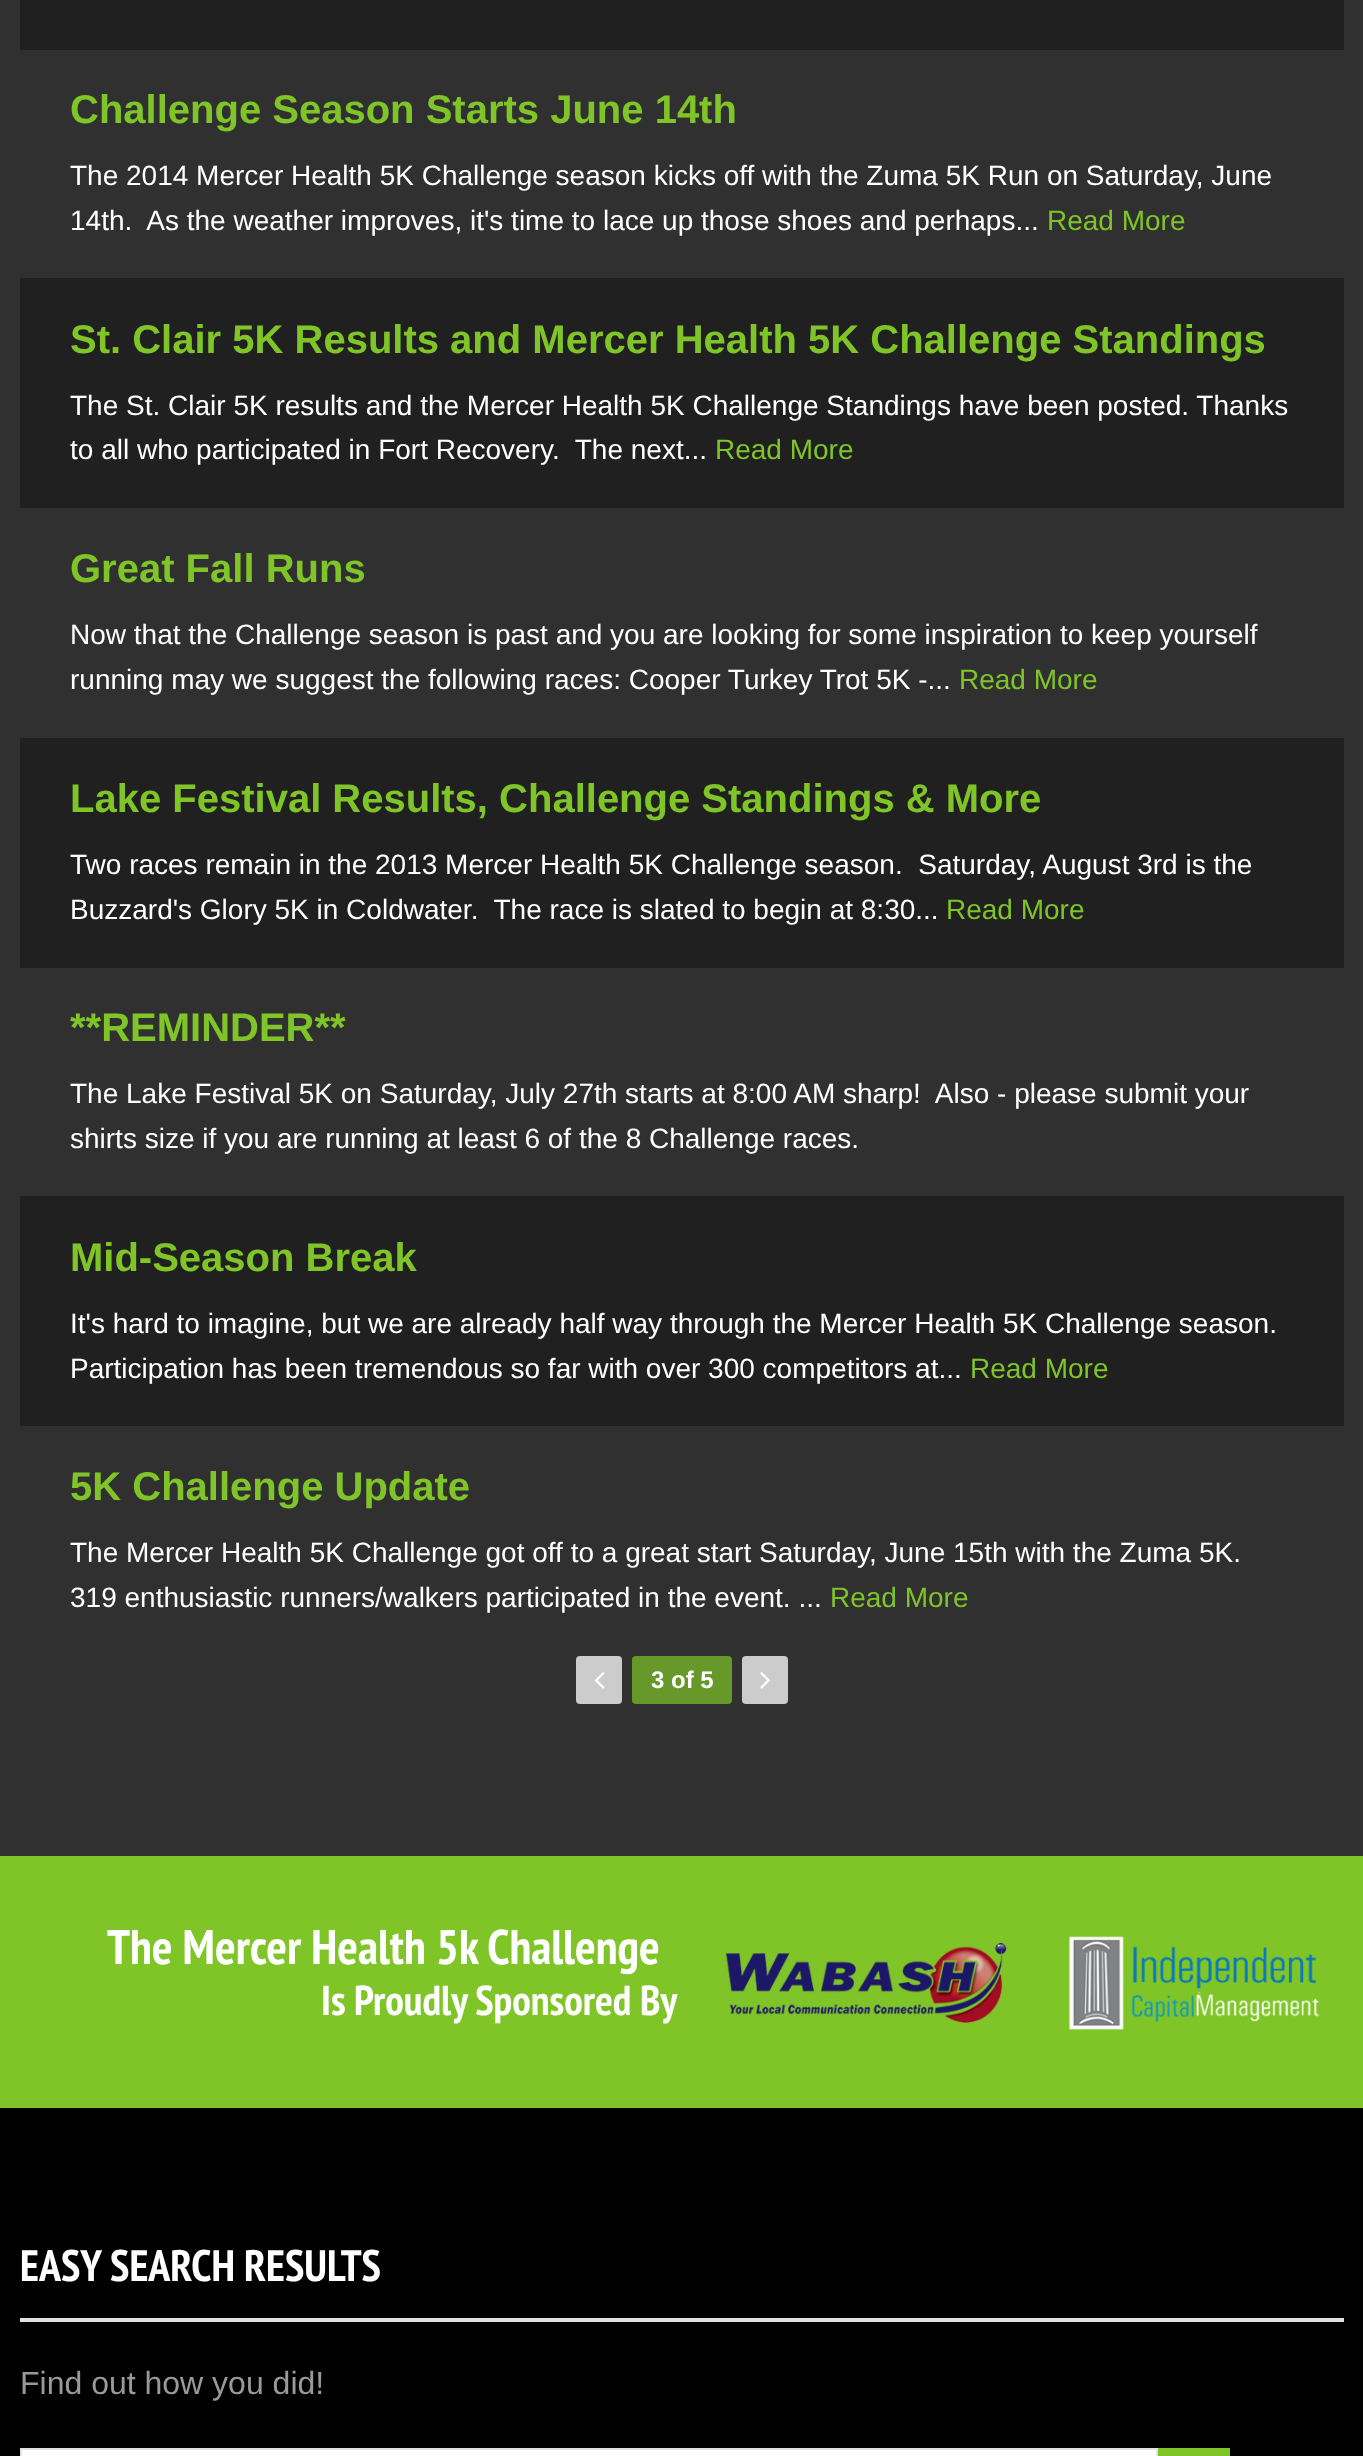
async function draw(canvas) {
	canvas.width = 1363;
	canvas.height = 2456;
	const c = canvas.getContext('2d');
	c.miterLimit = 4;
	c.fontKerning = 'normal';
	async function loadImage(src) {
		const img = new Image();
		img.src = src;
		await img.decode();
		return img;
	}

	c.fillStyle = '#303030';
	c.fillRect(0, 0, 1363, 2456);
	c.fillStyle = '#202020';
	c.fillRect(20, 0, 1324, 50);
	c.font = 'bold 40px Liberation Sans';
	c.fillStyle = '#7fc528';
	c.fillText('Challenge Season Starts June 14th', 70, 123);
	c.font = '28px Liberation Sans';
	c.fillStyle = '#fff';
	c.fillText('The 2014 Mercer Health 5K Challenge season kicks off with the Zuma 5K Run on Saturday, June', 70, 185);
	c.fillText('14th.  As the weather improves, it\'s time to lace up those shoes and perhaps...', 70, 230);
	c.fillStyle = '#7fc528';
	c.fillText('Read More', 1047, 230);
	c.fillStyle = '#202020';
	c.fillRect(20, 278, 1324, 230);
	c.font = 'bold 40px Liberation Sans';
	c.fillStyle = '#7fc528';
	c.fillText('St. Clair 5K Results and Mercer Health 5K Challenge Standings', 70, 353);
	c.font = '28px Liberation Sans';
	c.fillStyle = '#fff';
	c.fillText('The St. Clair 5K results and the Mercer Health 5K Challenge Standings have been posted. Thanks', 70, 415);
	c.fillText('to all who participated in Fort Recovery.  The next...', 70, 459);
	c.fillStyle = '#7fc528';
	c.fillText('Read More', 715, 459);
	c.font = 'bold 40px Liberation Sans';
	c.fillText('Great Fall Runs', 70, 582);
	c.font = '28px Liberation Sans';
	c.fillStyle = '#fff';
	c.fillText('Now that the Challenge season is past and you are looking for some inspiration to keep yourself', 70, 644);
	c.fillText('running may we suggest the following races: Cooper Turkey Trot 5K -...', 70, 689);
	c.fillStyle = '#7fc528';
	c.fillText('Read More', 959, 689);
	c.fillStyle = '#202020';
	c.fillRect(20, 738, 1324, 230);
	c.font = 'bold 40px Liberation Sans';
	c.fillStyle = '#7fc528';
	c.fillText('Lake Festival Results, Challenge Standings & More', 70, 812);
	c.font = '28px Liberation Sans';
	c.fillStyle = '#fff';
	c.fillText('Two races remain in the 2013 Mercer Health 5K Challenge season.  Saturday, August 3rd is the', 70, 874);
	c.fillText('Buzzard\'s Glory 5K in Coldwater.  The race is slated to begin at 8:30...', 70, 919);
	c.fillStyle = '#7fc528';
	c.fillText('Read More', 946, 919);
	c.font = 'bold 40px Liberation Sans';
	c.fillText('**REMINDER**', 70, 1041);
	c.font = '28px Liberation Sans';
	c.fillStyle = '#fff';
	c.fillText('The Lake Festival 5K on Saturday, July 27th starts at 8:00 AM sharp!  Also - please submit your', 70, 1103);
	c.fillText('shirts size if you are running at least 6 of the 8 Challenge races.', 70, 1148);
	c.fillStyle = '#202020';
	c.fillRect(20, 1196, 1324, 230);
	c.font = 'bold 40px Liberation Sans';
	c.fillStyle = '#7fc528';
	c.fillText('Mid-Season Break', 70, 1271);
	c.font = '28px Liberation Sans';
	c.fillStyle = '#fff';
	c.fillText('It\'s hard to imagine, but we are already half way through the Mercer Health 5K Challenge season.', 70, 1333);
	c.fillText('Participation has been tremendous so far with over 300 competitors at...', 70, 1378);
	c.fillStyle = '#7fc528';
	c.fillText('Read More', 970, 1378);
	c.font = 'bold 40px Liberation Sans';
	c.fillText('5K Challenge Update', 70, 1500);
	c.font = '28px Liberation Sans';
	c.fillStyle = '#fff';
	c.fillText('The Mercer Health 5K Challenge got off to a great start Saturday, June 15th with the Zuma 5K.', 70, 1562);
	c.fillText('319 enthusiastic runners/walkers participated in the event. ...', 70, 1607);
	c.fillStyle = '#7fc528';
	c.fillText('Read More', 830, 1607);
	c.fillStyle = '#ccc';
	c.beginPath();
	c.roundRect(576, 1656, 46, 48, 4);
	c.fill();
	c.drawImage(await loadImage('img1.png'), 594, 1672, 11, 17);
	c.fillStyle = '#67982a';
	c.beginPath();
	c.roundRect(632, 1656, 100, 48, 4);
	c.fill();
	c.font = 'bold 24px Liberation Sans';
	c.fillStyle = '#fff';
	c.fillText('3 of 5', 651, 1688);
	c.fillStyle = '#ccc';
	c.beginPath();
	c.roundRect(742, 1656, 46, 48, 4);
	c.fill();
	c.drawImage(await loadImage('img2.png'), 760, 1672, 10, 17);
	c.fillStyle = '#7fc528';
	c.fillRect(0, 1856, 1363, 252);
	c.font = 'bold 48.6px PT Sans Narrow';
	c.fillStyle = '#fff';
	c.fillText('The Mercer Health 5k Challenge', 107, 1964);
	c.drawImage(await loadImage('img3.png'), 725, 1943, 282, 80);
	c.drawImage(await loadImage('img4.png'), 1069, 1936, 250, 94);
	c.font = 'bold 41.75px PT Sans Narrow';
	c.fillText('Is Proudly Sponsored By', 321, 2015);
	c.fillStyle = '#000';
	c.fillRect(0, 2108, 1363, 348);
	c.fillStyle = '#e1e1e1';
	c.fillRect(20, 2318, 1324, 4);
	c.font = 'bold 44px PT Sans Narrow';
	c.fillStyle = '#fff';
	c.fillText('EASY SEARCH RESULTS', 20, 2281);
	c.font = '32px Liberation Sans';
	c.fillStyle = '#999';
	c.fillText('Find out how you did!', 20, 2394);
	c.fillStyle = '#fff';
	c.beginPath();
	c.rect(21, 2449, 1136, 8);
	c.fill();
	c.strokeStyle = '#e1e1e1';
	c.lineWidth = 2;
	c.stroke();
	c.fillStyle = '#7fc528';
	c.fillRect(1158, 2448, 72, 8);
}

draw(document.querySelector('canvas'));
